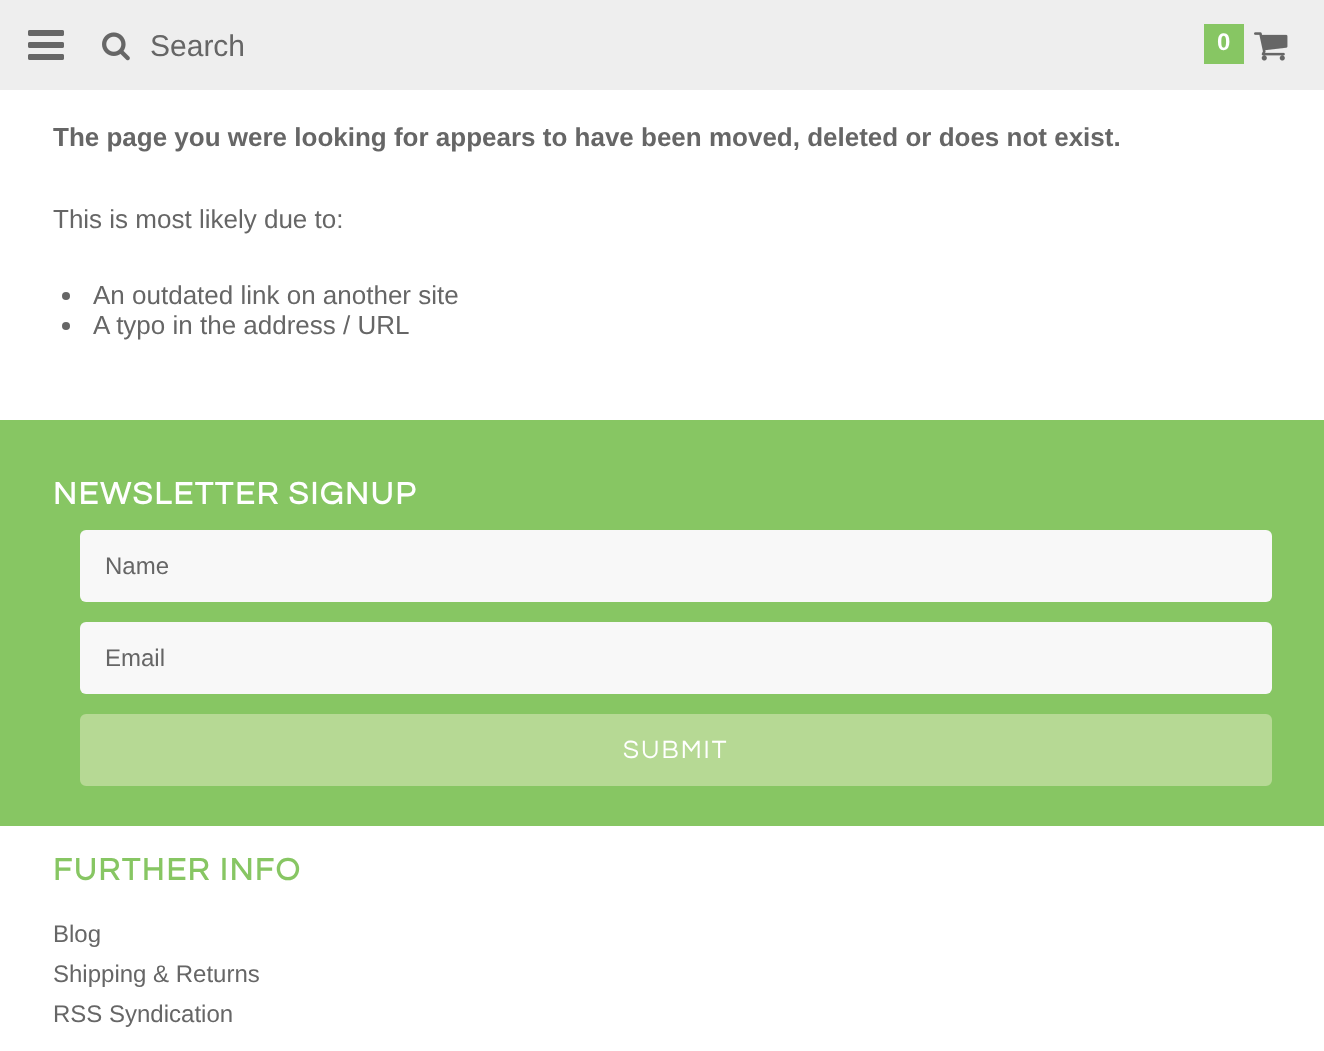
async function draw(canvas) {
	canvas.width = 1324;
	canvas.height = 1051;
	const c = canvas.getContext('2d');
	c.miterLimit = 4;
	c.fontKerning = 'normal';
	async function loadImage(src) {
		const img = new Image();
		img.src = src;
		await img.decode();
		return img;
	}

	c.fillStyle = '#fff';
	c.fillRect(0, 0, 1324, 1051);
	c.fillStyle = '#eee';
	c.fillRect(0, 0, 1324, 90);
	c.drawImage(await loadImage('img1.png'), 28, 30, 36, 30);
	c.drawImage(await loadImage('img2.png'), 102, 32, 28, 29);
	c.font = '30px Liberation Sans';
	c.fillStyle = '#666';
	c.fillText('Search', 150, 56);
	c.fillStyle = '#87c663';
	c.fillRect(1204, 24, 40, 40);
	c.font = 'bold 24px Liberation Sans';
	c.fillStyle = '#fff';
	c.fillText('0', 1217, 50);
	c.drawImage(await loadImage('img3.png'), 1254, 32, 34, 29);
	c.font = 'bold 26px Liberation Sans';
	c.fillStyle = '#666';
	c.fillText('The page you were looking for appears to have been moved, deleted or does not exist.', 53, 146);
	c.font = '26px Liberation Sans';
	c.fillText('This is most likely due to:', 53, 228);
	c.beginPath();
	c.arc(66, 296, 4, 0, 2 * Math.PI);
	c.fill();
	c.fillText('An outdated link on another site', 93, 304);
	c.beginPath();
	c.arc(66, 326, 4, 0, 2 * Math.PI);
	c.fill();
	c.fillText('A typo in the address / URL', 93, 334);
	c.fillStyle = '#87c663';
	c.fillRect(0, 420, 1324, 406);
	c.letterSpacing = '2px';
	c.font = 'bold 32px Questrial';
	c.fillStyle = '#fff';
	c.fillText('NEWSLETTER SIGNUP', 53, 504);
	c.fillStyle = '#f8f8f8';
	c.beginPath();
	c.roundRect(80, 530, 1192, 72, 6);
	c.fill();
	c.letterSpacing = '0px';
	c.font = '24px Liberation Sans';
	c.fillStyle = '#666';
	c.fillText('Name', 105, 574);
	c.fillStyle = '#f8f8f8';
	c.beginPath();
	c.roundRect(80, 622, 1192, 72, 6);
	c.fill();
	c.fillStyle = '#666';
	c.fillText('Email', 105, 666);
	c.fillStyle = '#b6d994';
	c.beginPath();
	c.roundRect(82, 716, 1188, 68, 4);
	c.fill();
	c.strokeStyle = '#b6d994';
	c.lineWidth = 4;
	c.stroke();
	c.letterSpacing = '2px';
	c.font = '26px Questrial';
	c.fillStyle = '#fff';
	c.fillText('SUBMIT', 623, 758);
	c.font = 'bold 32px Questrial';
	c.fillStyle = '#87c663';
	c.fillText('FURTHER INFO', 53, 880);
	c.letterSpacing = '0px';
	c.font = '24px Liberation Sans';
	c.fillStyle = '#666';
	for (const [text, x, y] of [
		['Blog', 53, 942],
		['Shipping & Returns', 53, 982],
		['RSS Syndication', 53, 1022],
	]) {
		c.fillText(text, x, y);
	}
}

draw(document.querySelector('canvas'));
